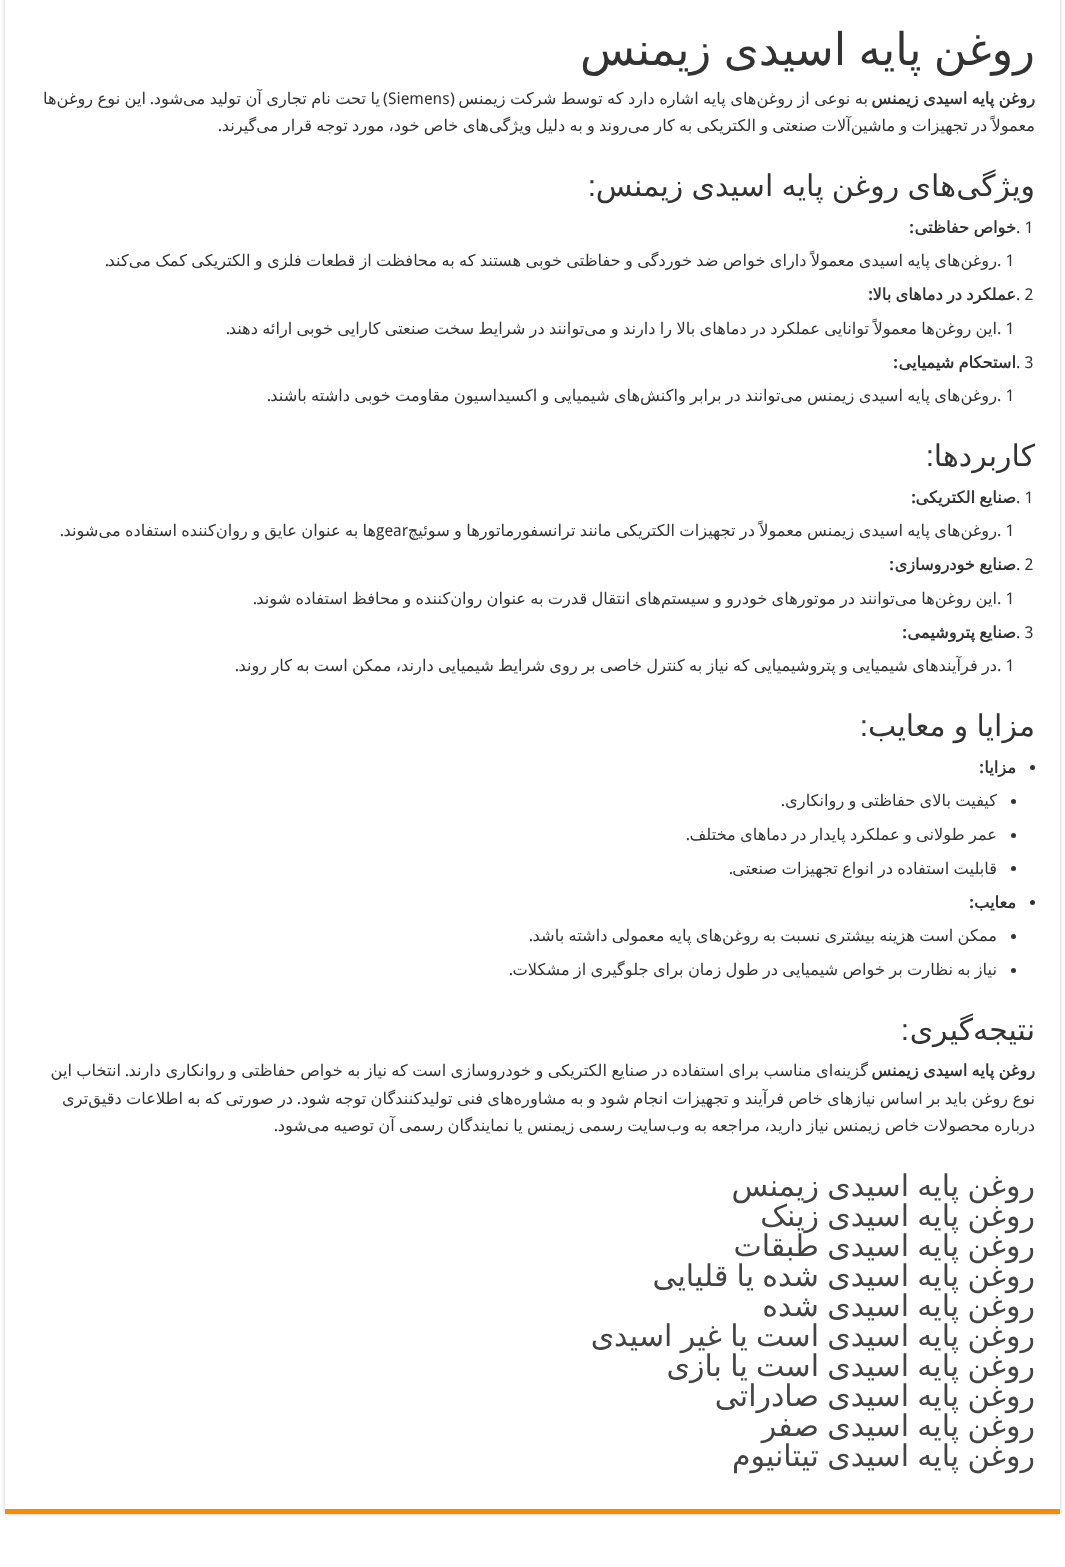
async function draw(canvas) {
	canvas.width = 1065;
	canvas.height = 1567;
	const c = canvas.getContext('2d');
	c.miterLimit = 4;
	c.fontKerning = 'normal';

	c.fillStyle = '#fff';
	c.fillRect(0, 0, 1065, 1567);
	c.fillStyle = '#cacaca';
	c.filter = 'blur(2px)';
	c.beginPath();
	c.rect(5, -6, 1055, 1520);
	c.fill();
	c.filter = 'none';
	c.fillStyle = '#fff';
	c.fillRect(5, 0, 1055, 1509);
	c.fillStyle = '#f88c00';
	c.fillRect(5, 1509, 1055, 5);
	c.wordSpacing = '-2px';
	c.direction = 'rtl';
	c.font = '45px DejaVu Sans';
	c.fillStyle = '#333';
	c.fillText('روغن پایه اسیدی زیمنس', 1035, 65);
	c.wordSpacing = '-0.9px';
	c.font = 'bold 16.25px DejaVu Sans';
	c.fillText('روغن پایه اسیدی زیمنس', 1035, 104);
	c.wordSpacing = '-0.75px';
	c.font = '16.25px DejaVu Sans';
	c.fillText('به نوعی از روغن‌های پایه اشاره دارد که توسط شرکت زیمنس', 868, 104);
	c.wordSpacing = '0px';
	c.font = '16.25px Droid Sans';
	c.fillText('(', 455, 104);
	c.direction = 'ltr';
	c.fillText('Siemens', 388, 104);
	c.wordSpacing = '-0.75px';
	c.direction = 'rtl';
	c.font = '16.25px DejaVu Sans';
	c.fillText('یا تحت نام تجاری آن تولید می‌شود', 380, 104);
	c.wordSpacing = '0px';
	c.font = '16.25px Droid Sans';
	c.fillText(')', 388, 104);
	c.fillText('.', 154, 104);
	c.wordSpacing = '-0.75px';
	c.font = '16.25px DejaVu Sans';
	c.fillText('این نوع روغن‌ها', 146, 104);
	c.wordSpacing = '-0.9px';
	c.fillText('معمولاً در تجهیزات و ماشین‌آلات صنعتی و الکتریکی به کار می‌روند و به دلیل ویژگی‌های خاص خود، مورد توجه قرار می‌گیرند', 1035, 131);
	c.wordSpacing = '0px';
	c.font = '16.25px Droid Sans';
	c.fillText('.', 222, 131);
	c.wordSpacing = '-1.25px';
	c.font = '30px DejaVu Sans';
	c.fillText('های روغن پایه اسیدی زیمنس', 956, 196);
	c.wordSpacing = '0px';
	c.fillText('ویژگی', 1035, 196);
	c.font = '30px Liberation Sans';
	c.fillText(':', 596, 196);
	c.direction = 'ltr';
	c.font = '16.25px Droid Sans';
	c.fillText('. 1', 1016, 233);
	c.wordSpacing = '-0.9px';
	c.direction = 'rtl';
	c.font = 'bold 16.25px DejaVu Sans';
	c.fillText('خواص حفاظتی', 1016, 233);
	c.wordSpacing = '0px';
	c.font = 'bold 16.25px Droid Sans';
	c.fillText(':', 914, 233);
	c.direction = 'ltr';
	c.font = '16.25px Droid Sans';
	c.fillText('. 1', 997, 266);
	c.wordSpacing = '-0.9px';
	c.direction = 'rtl';
	c.font = '16.25px DejaVu Sans';
	c.fillText('روغن‌های پایه اسیدی معمولاً دارای خواص ضد خوردگی و حفاظتی خوبی هستند که به محافظت از قطعات فلزی و الکتریکی کمک می‌کند', 997, 266);
	c.wordSpacing = '0px';
	c.font = '16.25px Droid Sans';
	c.fillText('.', 109, 266);
	c.direction = 'ltr';
	c.fillText('. 2', 1016, 300);
	c.wordSpacing = '-0.9px';
	c.direction = 'rtl';
	c.font = 'bold 16.25px DejaVu Sans';
	c.fillText('عملکرد در دماهای بالا', 1016, 300);
	c.wordSpacing = '0px';
	c.font = 'bold 16.25px Droid Sans';
	c.fillText(':', 873, 300);
	c.direction = 'ltr';
	c.font = '16.25px Droid Sans';
	c.fillText('. 1', 997, 334);
	c.wordSpacing = '-0.9px';
	c.direction = 'rtl';
	c.font = '16.25px DejaVu Sans';
	c.fillText('این روغن‌ها معمولاً توانایی عملکرد در دماهای بالا را دارند و می‌توانند در شرایط سخت صنعتی کارایی خوبی ارائه دهند', 997, 334);
	c.wordSpacing = '0px';
	c.font = '16.25px Droid Sans';
	c.fillText('.', 230, 334);
	c.direction = 'ltr';
	c.fillText('. 3', 1016, 368);
	c.wordSpacing = '-0.9px';
	c.direction = 'rtl';
	c.font = 'bold 16.25px DejaVu Sans';
	c.fillText('استحکام شیمیایی', 1016, 368);
	c.wordSpacing = '0px';
	c.font = 'bold 16.25px Droid Sans';
	c.fillText(':', 898, 368);
	c.direction = 'ltr';
	c.font = '16.25px Droid Sans';
	c.fillText('. 1', 997, 401);
	c.wordSpacing = '-0.9px';
	c.direction = 'rtl';
	c.font = '16.25px DejaVu Sans';
	c.fillText('روغن‌های پایه اسیدی زیمنس می‌توانند در برابر واکنش‌های شیمیایی و اکسیداسیون مقاومت خوبی داشته باشند', 997, 401);
	c.wordSpacing = '0px';
	c.font = '16.25px Droid Sans';
	c.fillText('.', 271, 401);
	c.font = '30px DejaVu Sans';
	c.fillText('کاربردها', 1035, 466);
	c.font = '30px Liberation Sans';
	c.fillText(':', 934, 466);
	c.direction = 'ltr';
	c.font = '16.25px Droid Sans';
	c.fillText('. 1', 1016, 503);
	c.wordSpacing = '-0.9px';
	c.direction = 'rtl';
	c.font = 'bold 16.25px DejaVu Sans';
	c.fillText('صنایع الکتریکی', 1016, 503);
	c.wordSpacing = '0px';
	c.font = 'bold 16.25px Droid Sans';
	c.fillText(':', 916, 503);
	c.direction = 'ltr';
	c.font = '16.25px Droid Sans';
	c.fillText('. 1', 997, 536);
	c.wordSpacing = '-0.9px';
	c.direction = 'rtl';
	c.font = '16.25px DejaVu Sans';
	c.fillText('روغن‌های پایه اسیدی زیمنس معمولاً در تجهیزات الکتریکی مانند ترانسفورماتورها و سوئیچ', 997, 536);
	c.fillText('ها به عنوان عایق و روان‌کننده استفاده می‌شوند', 376, 536);
	c.wordSpacing = '0px';
	c.direction = 'ltr';
	c.font = '16.25px Droid Sans';
	c.fillText('gear', 376, 536);
	c.direction = 'rtl';
	c.fillText('.', 64, 536);
	c.direction = 'ltr';
	c.fillText('. 2', 1016, 570);
	c.wordSpacing = '-0.9px';
	c.direction = 'rtl';
	c.font = 'bold 16.25px DejaVu Sans';
	c.fillText('صنایع خودروسازی', 1016, 570);
	c.wordSpacing = '0px';
	c.font = 'bold 16.25px Droid Sans';
	c.fillText(':', 894, 570);
	c.direction = 'ltr';
	c.font = '16.25px Droid Sans';
	c.fillText('. 1', 997, 604);
	c.wordSpacing = '-0.9px';
	c.direction = 'rtl';
	c.font = '16.25px DejaVu Sans';
	c.fillText('این روغن‌ها می‌توانند در موتورهای خودرو و سیستم‌های انتقال قدرت به عنوان روان‌کننده و محافظ استفاده شوند', 997, 604);
	c.wordSpacing = '0px';
	c.font = '16.25px Droid Sans';
	c.fillText('.', 257, 604);
	c.direction = 'ltr';
	c.fillText('. 3', 1016, 638);
	c.wordSpacing = '-0.9px';
	c.direction = 'rtl';
	c.font = 'bold 16.25px DejaVu Sans';
	c.fillText('صنایع پتروشیمی', 1016, 638);
	c.wordSpacing = '0px';
	c.font = 'bold 16.25px Droid Sans';
	c.fillText(':', 907, 638);
	c.direction = 'ltr';
	c.font = '16.25px Droid Sans';
	c.fillText('. 1', 997, 671);
	c.wordSpacing = '-0.9px';
	c.direction = 'rtl';
	c.font = '16.25px DejaVu Sans';
	c.fillText('در فرآیندهای شیمیایی و پتروشیمیایی که نیاز به کنترل خاصی بر روی شرایط شیمیایی دارند، ممکن است به کار روند', 997, 671);
	c.wordSpacing = '0px';
	c.font = '16.25px Droid Sans';
	c.fillText('.', 239, 671);
	c.wordSpacing = '-1.25px';
	c.font = '30px DejaVu Sans';
	c.fillText('مزایا و معایب', 1035, 736);
	c.wordSpacing = '0px';
	c.font = '30px Liberation Sans';
	c.fillText(':', 868, 736);
	c.beginPath();
	c.arc(1032.5, 767.5, 2.5, 0, 2 * Math.PI);
	c.fill();
	c.font = 'bold 16.25px DejaVu Sans';
	c.fillText('مزایا', 1016, 773);
	c.font = 'bold 16.25px Droid Sans';
	c.fillText(':', 984, 773);
	c.beginPath();
	c.arc(1013.5, 801.5, 2.5, 0, 2 * Math.PI);
	c.fill();
	c.wordSpacing = '-0.9px';
	c.font = '16.25px DejaVu Sans';
	c.fillText('کیفیت بالای حفاظتی و روانکاری', 997, 806);
	c.wordSpacing = '0px';
	c.font = '16.25px Droid Sans';
	c.fillText('.', 785, 806);
	c.beginPath();
	c.arc(1013.5, 835.5, 2.5, 0, 2 * Math.PI);
	c.fill();
	c.wordSpacing = '-0.9px';
	c.font = '16.25px DejaVu Sans';
	c.fillText('عمر طولانی و عملکرد پایدار در دماهای مختلف', 997, 840);
	c.wordSpacing = '0px';
	c.font = '16.25px Droid Sans';
	c.fillText('.', 690, 840);
	c.beginPath();
	c.arc(1013.5, 868.5, 2.5, 0, 2 * Math.PI);
	c.fill();
	c.wordSpacing = '-0.9px';
	c.font = '16.25px DejaVu Sans';
	c.fillText('قابلیت استفاده در انواع تجهیزات صنعتی', 997, 874);
	c.wordSpacing = '0px';
	c.font = '16.25px Droid Sans';
	c.fillText('.', 733, 874);
	c.beginPath();
	c.arc(1032.5, 902.5, 2.5, 0, 2 * Math.PI);
	c.fill();
	c.font = 'bold 16.25px DejaVu Sans';
	c.fillText('معایب', 1016, 908);
	c.font = 'bold 16.25px Droid Sans';
	c.fillText(':', 974, 908);
	c.beginPath();
	c.arc(1013.5, 936.5, 2.5, 0, 2 * Math.PI);
	c.fill();
	c.wordSpacing = '-0.9px';
	c.font = '16.25px DejaVu Sans';
	c.fillText('ممکن است هزینه بیشتری نسبت به روغن‌های پایه معمولی داشته باشد', 997, 941);
	c.wordSpacing = '0px';
	c.font = '16.25px Droid Sans';
	c.fillText('.', 533, 941);
	c.beginPath();
	c.arc(1013.5, 970.5, 2.5, 0, 2 * Math.PI);
	c.fill();
	c.wordSpacing = '-0.9px';
	c.font = '16.25px DejaVu Sans';
	c.fillText('نیاز به نظارت بر خواص شیمیایی در طول زمان برای جلوگیری از مشکلات', 997, 975);
	c.wordSpacing = '0px';
	c.font = '16.25px Droid Sans';
	c.fillText('.', 513, 975);
	c.font = '30px DejaVu Sans';
	c.fillText('نتیجه', 1035, 1040);
	c.fillText('گیری', 973, 1040);
	c.font = '30px Liberation Sans';
	c.fillText(':', 909, 1040);
	c.wordSpacing = '-0.9px';
	c.font = 'bold 16.25px DejaVu Sans';
	c.fillText('روغن پایه اسیدی زیمنس', 1035, 1076);
	c.wordSpacing = '-0.8px';
	c.font = '16.25px DejaVu Sans';
	c.fillText('گزینه‌ای مناسب برای استفاده در صنایع الکتریکی و خودروسازی است که نیاز به خواص حفاظتی و روانکاری دارند', 868, 1076);
	c.wordSpacing = '0px';
	c.font = '16.25px Droid Sans';
	c.fillText('.', 129, 1076);
	c.wordSpacing = '-0.8px';
	c.font = '16.25px DejaVu Sans';
	c.fillText('انتخاب این', 121, 1076);
	c.wordSpacing = '-0.9px';
	c.fillText('نوع روغن باید بر اساس نیازهای خاص فرآیند و تجهیزات انجام شود و به مشاوره‌های فنی تولیدکنندگان توجه شود', 1035, 1104);
	c.wordSpacing = '0px';
	c.font = '16.25px Droid Sans';
	c.fillText('.', 301, 1104);
	c.wordSpacing = '-0.9px';
	c.font = '16.25px DejaVu Sans';
	c.fillText('در صورتی که به اطلاعات دقیق‌تری', 293, 1104);
	c.fillText('درباره محصولات خاص زیمنس نیاز دارید، مراجعه به وب‌سایت رسمی زیمنس یا نمایندگان رسمی آن توصیه می‌شود', 1035, 1131);
	c.wordSpacing = '0px';
	c.font = '16.25px Droid Sans';
	c.fillText('.', 278, 1131);
	c.wordSpacing = '-1.25px';
	c.font = '30px DejaVu Sans';
	c.fillStyle = '#444';
	for (const [text, x, y] of [
		['روغن پایه اسیدی زیمنس', 1035, 1196],
		['روغن پایه اسیدی زینک', 1035, 1226],
		['روغن پایه اسیدی طبقات', 1035, 1256],
		['روغن پایه اسیدی شده یا قلیایی', 1035, 1286],
		['روغن پایه اسیدی شده', 1035, 1316],
		['روغن پایه اسیدی است یا غیر اسیدی', 1035, 1346],
		['روغن پایه اسیدی است یا بازی', 1035, 1376],
		['روغن پایه اسیدی صادراتی', 1035, 1406],
		['روغن پایه اسیدی صفر', 1035, 1436],
		['روغن پایه اسیدی تیتانیوم', 1035, 1466],
	]) {
		c.fillText(text, x, y);
	}
}

draw(document.querySelector('canvas'));
